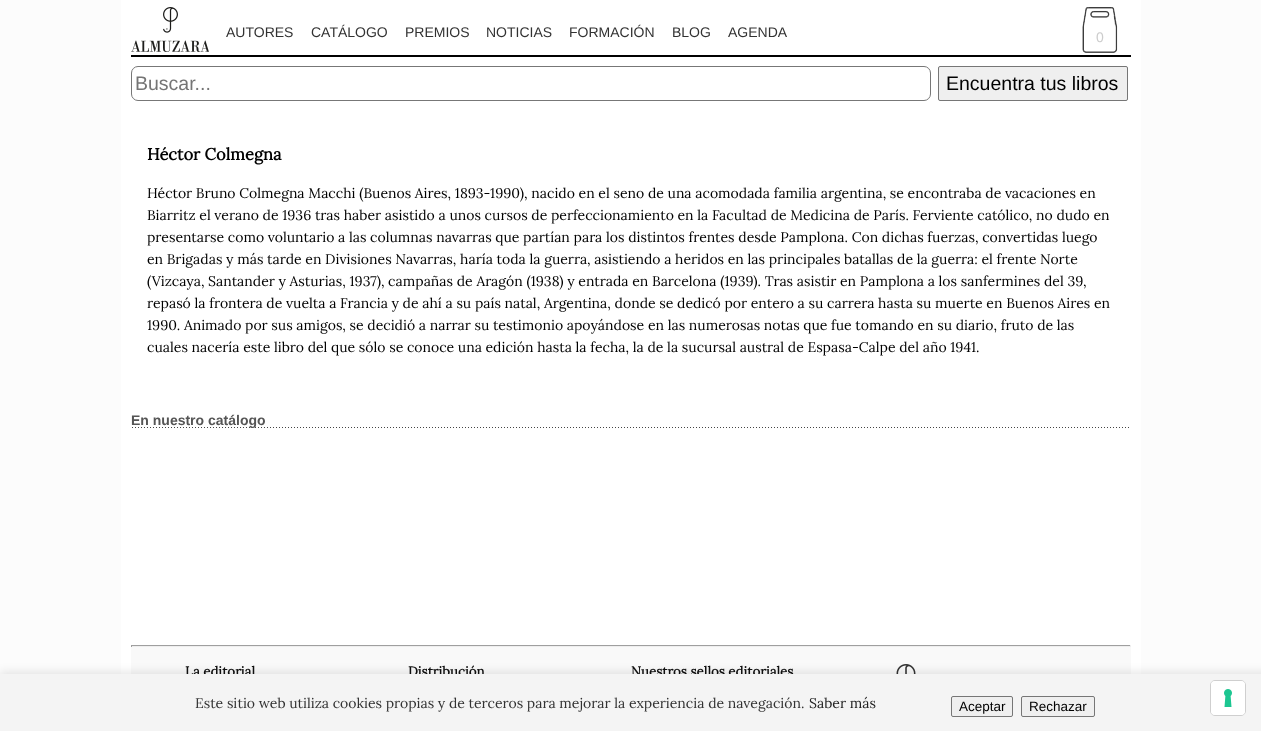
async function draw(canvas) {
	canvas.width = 1261;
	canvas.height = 731;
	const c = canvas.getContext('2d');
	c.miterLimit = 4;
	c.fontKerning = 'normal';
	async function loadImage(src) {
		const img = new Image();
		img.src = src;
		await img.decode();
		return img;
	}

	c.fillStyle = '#fcfcfc';
	c.fillRect(0, 0, 1261, 731);
	c.fillStyle = '#fff';
	c.fillRect(121, 0, 1020, 674);
	c.fillStyle = '#000';
	c.fillRect(131, 55, 1000, 2);
	c.drawImage(await loadImage('img1.png'), 131, 7, 78, 45);
	c.font = '14px Liberation Sans';
	c.fillStyle = '#323232';
	for (const [text, x, y] of [
		['AUTORES', 226, 37],
		['CATÁLOGO', 311, 37],
		['PREMIOS', 405, 37],
		['NOTICIAS', 486, 37],
		['FORMACIÓN', 569, 37],
		['BLOG', 672, 37],
		['AGENDA', 728, 37],
	]) {
		c.fillText(text, x, y);
	}
	c.drawImage(await loadImage('img2.png'), 1082, 7, 36, 46);
	c.fillStyle = '#ccc';
	c.fillText('0', 1096, 42);
	c.beginPath();
	c.roundRect(131.5, 66.5, 799, 34, 6.5);
	c.strokeStyle = '#777';
	c.stroke();
	c.font = '19.5px Liberation Sans';
	c.fillStyle = '#757575';
	c.fillText('Buscar...', 135, 90);
	c.fillStyle = '#efefef';
	c.beginPath();
	c.roundRect(938.5, 66.5, 189, 34, 1.5);
	c.fill();
	c.strokeStyle = '#767676';
	c.stroke();
	c.fillStyle = '#000';
	c.fillText('Encuentra tus libros', 946, 90);
	c.font = 'bold 16.5px Lora';
	c.fillText('Héctor Colmegna', 147, 160);
	c.font = '14px Lora';
	for (const [text, x, y] of [
		['Héctor Bruno Colmegna Macchi (Buenos Aires, 1893-1990), nacido en el seno de una acomodada familia argentina, se encontraba de vacaciones en', 147, 198],
		['Biarritz el verano de 1936 tras haber asistido a unos cursos de perfeccionamiento en la Facultad de Medicina de París. Ferviente católico, no dudo en', 147, 220],
		['presentarse como voluntario a las columnas navarras que partían para los distintos frentes desde Pamplona. Con dichas fuerzas, convertidas luego', 147, 242],
		['en Brigadas y más tarde en Divisiones Navarras, haría toda la guerra, asistiendo a heridos en las principales batallas de la guerra: el frente Norte', 147, 264],
		['(Vizcaya, Santander y Asturias, 1937), campañas de Aragón (1938) y entrada en Barcelona (1939). Tras asistir en Pamplona a los sanfermines del 39,', 147, 286],
		['repasó la frontera de vuelta a Francia y de ahí a su país natal, Argentina, donde se dedicó por entero a su carrera hasta su muerte en Buenos Aires en', 147, 308],
		['1990. Animado por sus amigos, se decidió a narrar su testimonio apoyándose en las numerosas notas que fue tomando en su diario, fruto de las', 147, 330],
		['cuales nacería este libro del que sólo se conoce una edición hasta la fecha, la de la sucursal austral de Espasa-Calpe del año 1941.', 147, 352],
	]) {
		c.fillText(text, x, y);
	}
	c.drawImage(await loadImage('img3.png'), 132, 427, 997, 1);
	c.font = 'bold 14px Liberation Sans';
	c.fillStyle = '#555';
	c.fillText('En nuestro catálogo', 131, 425);
	for (const [x, y, w, h, color] of [
		[131, 647, 1000, 27, '#f9f9f9'],
		[131, 645, 1000, 1, '#9f9f9f'],
		[1130, 645, 1, 2, '#eee'],
		[131, 646, 1000, 1, '#eee'],
		[131, 645, 1, 2, '#9f9f9f'],
	]) {
		c.fillStyle = color;
		c.fillRect(x, y, w, h);
	}
	c.font = 'bold 13.25px Lora';
	c.fillStyle = '#111';
	for (const [text, x, y] of [
		['La editorial', 185, 676],
		['Distribución', 408, 676],
		['Nuestros sellos editoriales', 631, 676],
	]) {
		c.fillText(text, x, y);
	}
	c.drawImage(await loadImage('img4.png'), 896, 664, 20, 10);
	c.fillStyle = '#0000001a';
	c.filter = 'blur(5px)';
	c.beginPath();
	c.rect(0, 672, 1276, 57);
	c.fill();
	c.filter = 'none';
	c.fillStyle = '#f4f4f4';
	c.fillRect(0, 674, 1261, 57);
	c.font = '14px Lora';
	c.fillStyle = '#323232';
	c.fillText('Este sitio web utiliza cookies propias y de terceros para mejorar la experiencia de navegación.', 195, 708);
	c.fillStyle = '#222';
	c.fillText('Saber más', 809, 708);
	c.fillStyle = '#efefef';
	c.beginPath();
	c.roundRect(951.5, 696.5, 61, 20, 1.5);
	c.fill();
	c.stroke();
	c.font = '13.5px Liberation Sans';
	c.fillStyle = '#000';
	c.fillText('Aceptar', 959, 711);
	c.fillStyle = '#efefef';
	c.beginPath();
	c.roundRect(1021.5, 696.5, 73, 20, 1.5);
	c.fill();
	c.stroke();
	c.fillStyle = '#000';
	c.fillText('Rechazar', 1029, 711);
	c.beginPath();
	c.roundRect(1210.5, 680.5, 35, 35, 4.5);
	c.strokeStyle = '#cfcfcf';
	c.stroke();
	c.fillStyle = '#fff';
	c.beginPath();
	c.roundRect(1211, 681, 34, 34, 4);
	c.fill();
	c.drawImage(await loadImage('img5.png'), 1224, 689, 8, 18);
}

draw(document.querySelector('canvas'));
